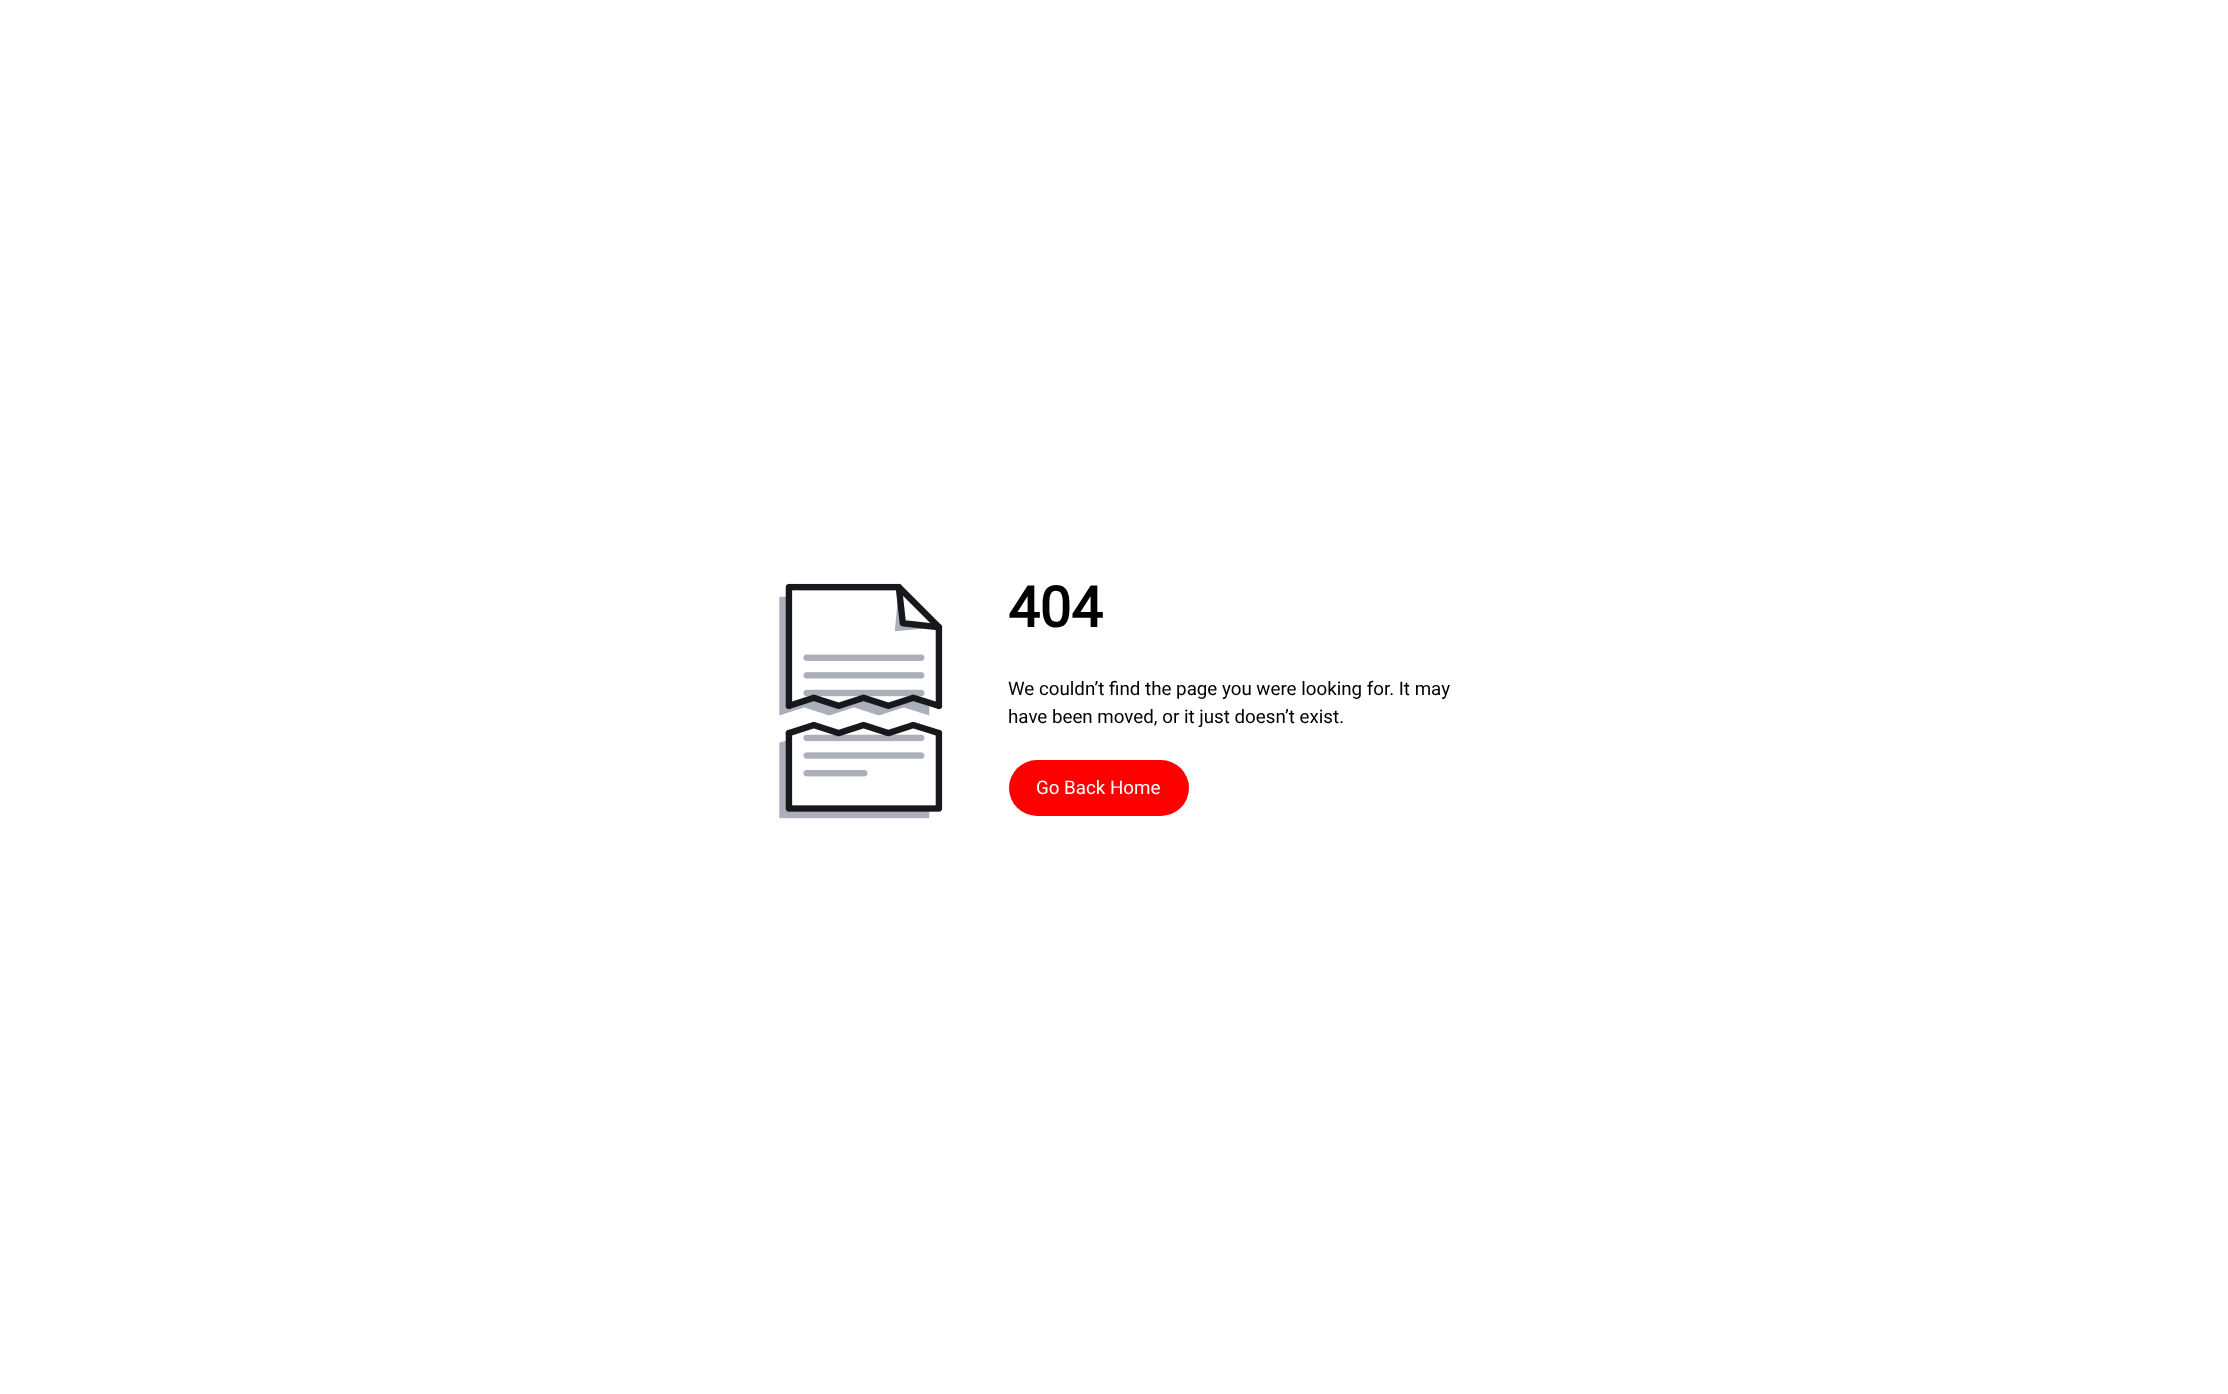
async function draw(canvas) {
	canvas.width = 2228;
	canvas.height = 1394;
	const c = canvas.getContext('2d');
	c.miterLimit = 4;
	c.fontKerning = 'normal';
	async function loadImage(src) {
		const img = new Image();
		img.src = src;
		await img.decode();
		return img;
	}

	c.fillStyle = '#fff';
	c.fillRect(0, 0, 2228, 1394);
	c.drawImage(await loadImage('img1.png'), 779, 583, 164, 236);
	c.font = 'bold 56px Roboto';
	c.fillStyle = '#000';
	c.fillText('404', 1008, 627);
	c.font = '18.75px Roboto';
	c.fillText('We couldn’t find the page you were looking for. It may', 1008, 695);
	c.fillText('have been moved, or it just doesn’t exist.', 1008, 723);
	c.fillStyle = '#f00';
	c.beginPath();
	c.roundRect(1009, 760, 180, 56, 28);
	c.fill();
	c.fillStyle = '#fff';
	c.fillText('Go Back Home', 1036, 794);
}

draw(document.querySelector('canvas'));
